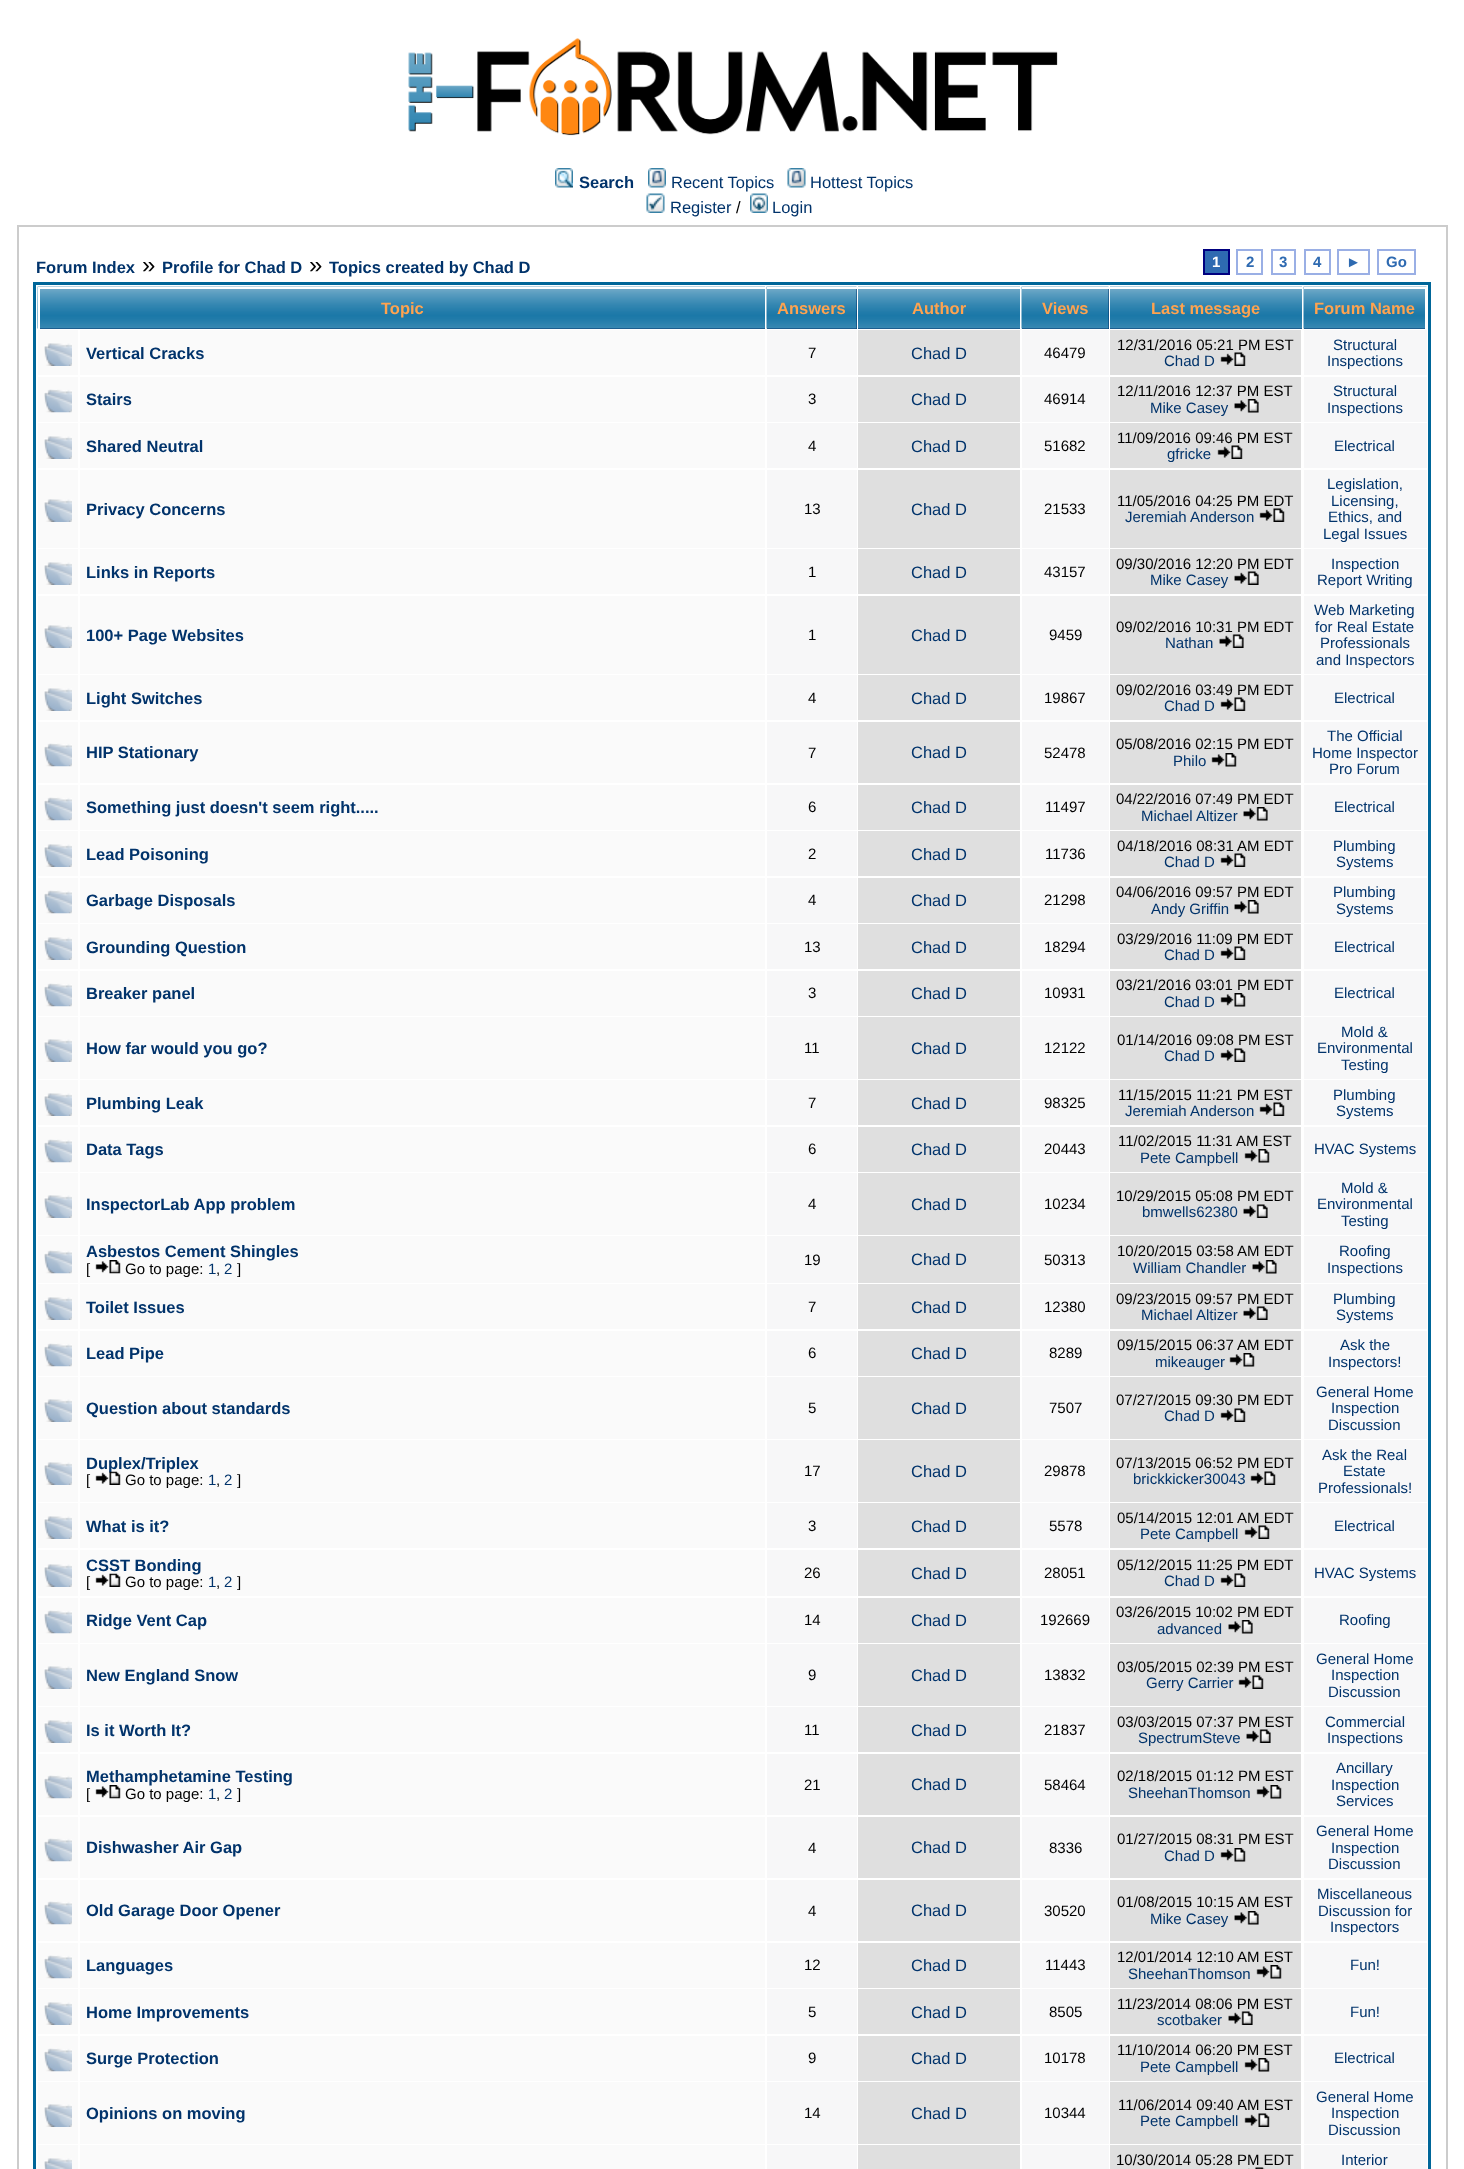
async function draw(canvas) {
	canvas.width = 1464;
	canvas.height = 2169;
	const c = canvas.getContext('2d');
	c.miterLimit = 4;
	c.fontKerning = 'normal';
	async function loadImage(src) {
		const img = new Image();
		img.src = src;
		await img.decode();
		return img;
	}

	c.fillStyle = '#fff';
	c.fillRect(0, 0, 1464, 2169);
	c.drawImage(await loadImage('img1.png'), 408, 38, 650, 98);
	c.drawImage(await loadImage('img2.png'), 555, 168, 18, 20);
	c.font = 'bold 16.5px Liberation Sans';
	c.fillStyle = '#01336b';
	c.fillText('Search', 579, 188);
	c.drawImage(await loadImage('img3.png'), 648, 168, 18, 20);
	c.font = '16.5px Liberation Sans';
	c.fillText('Recent Topics', 671, 188);
	c.drawImage(await loadImage('img4.png'), 787, 168, 19, 20);
	c.fillText('Hottest Topics', 810, 188);
	c.drawImage(await loadImage('img5.png'), 646, 193, 19, 20);
	c.fillText('Register', 670, 213);
	c.fillStyle = '#000';
	c.fillText('/', 736, 213);
	c.drawImage(await loadImage('img6.png'), 750, 193, 18, 20);
	c.fillStyle = '#01336b';
	c.fillText('Login', 772, 213);
	c.strokeStyle = '#ccc';
	c.lineWidth = 2;
	c.strokeRect(18, 226, 1429, 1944);
	c.font = 'bold 16.5px Liberation Sans';
	c.fillText('Forum Index', 36, 273);
	c.font = '24px Liberation Sans';
	c.fillStyle = '#000';
	c.fillText('»', 142, 273);
	c.font = 'bold 16.5px Liberation Sans';
	c.fillStyle = '#01336b';
	c.fillText('Profile for Chad D', 162, 273);
	c.font = '24px Liberation Sans';
	c.fillStyle = '#000';
	c.fillText('»', 309, 273);
	c.font = 'bold 16.5px Liberation Sans';
	c.fillStyle = '#01336b';
	c.fillText('Topics created by Chad D', 329, 273);
	c.fillStyle = '#2e6ab1';
	c.beginPath();
	c.rect(1204, 250, 25, 24);
	c.fill();
	c.strokeStyle = '#000080';
	c.stroke();
	c.font = 'bold 15px Liberation Sans';
	c.fillStyle = '#fff';
	c.fillText('1', 1212, 267);
	c.strokeStyle = '#9aafe5';
	c.strokeRect(1237, 250, 25, 24);
	c.fillStyle = '#2e6ab1';
	c.fillText('2', 1246, 267);
	c.strokeRect(1272, 250, 23, 24);
	c.fillText('3', 1279, 267);
	c.strokeRect(1305, 250, 25, 24);
	c.fillText('4', 1313, 267);
	c.strokeRect(1338, 250, 31, 24);
	c.fillText('►', 1346, 267);
	c.strokeRect(1378, 250, 37, 24);
	c.fillText('Go', 1386, 267);
	c.strokeStyle = '#069';
	c.lineWidth = 3;
	c.strokeRect(34.5, 283.5, 1395, 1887);
	c.fillStyle = '#01336b';
	c.fillRect(40, 328, 725, 1);
	c.drawImage(await loadImage('img7.png'), 37, 286, 728, 43);
	c.fillStyle = '#fff';
	c.fillRect(38, 287, 727, 2);
	c.fillRect(38, 287, 2, 42);
	c.font = 'bold 16.5px Liberation Sans';
	c.fillStyle = '#ffa34f';
	c.fillText('Topic', 381, 314);
	c.fillStyle = '#01336b';
	c.fillRect(767, 289, 90, 40);
	c.drawImage(await loadImage('img8.png'), 766, 286, 91, 43);
	c.fillStyle = '#fff';
	c.fillRect(767, 287, 90, 2);
	c.fillStyle = '#ffa34f';
	c.fillText('Answers', 777, 314);
	c.fillStyle = '#01336b';
	c.fillRect(858, 328, 162, 1);
	c.drawImage(await loadImage('img9.png'), 858, 286, 162, 43);
	c.fillStyle = '#fff';
	c.fillRect(858, 287, 162, 2);
	c.fillStyle = '#ffa34f';
	c.fillText('Author', 912, 314);
	c.fillStyle = '#01336b';
	c.fillRect(1022, 289, 87, 40);
	c.drawImage(await loadImage('img10.png'), 1021, 286, 88, 43);
	c.fillStyle = '#fff';
	c.fillRect(1022, 287, 87, 2);
	c.fillStyle = '#ffa34f';
	c.fillText('Views', 1042, 314);
	c.fillStyle = '#01336b';
	c.fillRect(1110, 328, 192, 1);
	c.drawImage(await loadImage('img11.png'), 1110, 286, 192, 43);
	c.fillStyle = '#fff';
	c.fillRect(1110, 287, 192, 2);
	c.fillStyle = '#ffa34f';
	c.fillText('Last message', 1151, 314);
	c.fillStyle = '#01336b';
	c.fillRect(1304, 328, 121, 1);
	c.drawImage(await loadImage('img12.png'), 1303, 286, 124, 43);
	c.fillStyle = '#fff';
	c.fillRect(1304, 287, 123, 2);
	c.fillRect(1425, 287, 2, 42);
	c.fillStyle = '#ffa34f';
	c.fillText('Forum Name', 1314, 314);
	c.fillStyle = '#fafafa';
	c.fillRect(38, 330, 40, 45);
	c.drawImage(await loadImage('img13.png'), 44, 343, 28, 23);
	c.fillRect(80, 330, 685, 45);
	c.fillStyle = '#01336b';
	c.fillText('Vertical Cracks', 86, 359);
	c.fillStyle = '#f7f7f8';
	c.fillRect(767, 330, 90, 45);
	c.font = '15px Liberation Sans';
	c.fillStyle = '#000';
	c.fillText('7', 808, 358);
	c.fillStyle = '#dfdfdf';
	c.fillRect(858, 330, 162, 45);
	c.font = '16.5px Liberation Sans';
	c.fillStyle = '#01336b';
	c.fillText('Chad D', 911, 359);
	c.fillStyle = '#f7f7f8';
	c.fillRect(1022, 330, 87, 45);
	c.font = '15px Liberation Sans';
	c.fillStyle = '#000';
	c.fillText('46479', 1044, 358);
	c.fillStyle = '#dfdfdf';
	c.fillRect(1110, 330, 191, 45);
	c.fillStyle = '#000';
	c.fillText('12/31/2016 05:21 PM EST', 1117, 350);
	c.fillStyle = '#01336b';
	c.fillText('Chad D', 1164, 366);
	c.drawImage(await loadImage('img14.png'), 1220, 352, 26, 14);
	c.fillStyle = '#f7f7f8';
	c.fillRect(1304, 330, 123, 45);
	c.fillStyle = '#01336b';
	c.fillText('Structural', 1333, 350);
	c.fillText('Inspections', 1327, 366);
	c.fillStyle = '#fafafa';
	c.fillRect(38, 377, 40, 45);
	c.drawImage(await loadImage('img15.png'), 44, 389, 28, 24);
	c.fillRect(80, 377, 685, 45);
	c.font = 'bold 16.5px Liberation Sans';
	c.fillStyle = '#01336b';
	c.fillText('Stairs', 86, 405);
	c.fillStyle = '#f7f7f8';
	c.fillRect(767, 377, 90, 45);
	c.font = '15px Liberation Sans';
	c.fillStyle = '#000';
	c.fillText('3', 808, 404);
	c.fillStyle = '#dfdfdf';
	c.fillRect(858, 377, 162, 45);
	c.font = '16.5px Liberation Sans';
	c.fillStyle = '#01336b';
	c.fillText('Chad D', 911, 405);
	c.fillStyle = '#f7f7f8';
	c.fillRect(1022, 377, 87, 45);
	c.font = '15px Liberation Sans';
	c.fillStyle = '#000';
	c.fillText('46914', 1044, 404);
	c.fillStyle = '#dfdfdf';
	c.fillRect(1110, 377, 191, 45);
	c.fillStyle = '#000';
	c.fillText('12/11/2016 12:37 PM EST', 1117, 396);
	c.fillStyle = '#01336b';
	c.fillText('Mike Casey', 1150, 413);
	c.drawImage(await loadImage('img16.png'), 1234, 399, 25, 14);
	c.fillStyle = '#f7f7f8';
	c.fillRect(1304, 377, 123, 45);
	c.fillStyle = '#01336b';
	c.fillText('Structural', 1333, 396);
	c.fillText('Inspections', 1327, 413);
	c.fillStyle = '#fafafa';
	c.fillRect(38, 423, 40, 45);
	c.drawImage(await loadImage('img13.png'), 44, 436, 28, 23);
	c.fillRect(80, 423, 685, 45);
	c.font = 'bold 16.5px Liberation Sans';
	c.fillStyle = '#01336b';
	c.fillText('Shared Neutral', 86, 452);
	c.fillStyle = '#f7f7f8';
	c.fillRect(767, 423, 90, 45);
	c.font = '15px Liberation Sans';
	c.fillStyle = '#000';
	c.fillText('4', 808, 451);
	c.fillStyle = '#dfdfdf';
	c.fillRect(858, 423, 162, 45);
	c.font = '16.5px Liberation Sans';
	c.fillStyle = '#01336b';
	c.fillText('Chad D', 911, 452);
	c.fillStyle = '#f7f7f8';
	c.fillRect(1022, 423, 87, 45);
	c.font = '15px Liberation Sans';
	c.fillStyle = '#000';
	c.fillText('51682', 1044, 451);
	c.fillStyle = '#dfdfdf';
	c.fillRect(1110, 423, 191, 45);
	c.fillStyle = '#000';
	c.fillText('11/09/2016 09:46 PM EST', 1117, 443);
	c.fillStyle = '#01336b';
	c.fillText('gfricke', 1167, 459);
	c.drawImage(await loadImage('img14.png'), 1217, 445, 26, 14);
	c.fillStyle = '#f7f7f8';
	c.fillRect(1304, 423, 123, 45);
	c.fillStyle = '#01336b';
	c.fillText('Electrical', 1334, 451);
	c.fillStyle = '#fafafa';
	c.fillRect(38, 470, 40, 78);
	c.drawImage(await loadImage('img13.png'), 44, 499, 28, 23);
	c.fillRect(80, 470, 685, 78);
	c.font = 'bold 16.5px Liberation Sans';
	c.fillStyle = '#01336b';
	c.fillText('Privacy Concerns', 86, 515);
	c.fillStyle = '#f7f7f8';
	c.fillRect(767, 470, 90, 78);
	c.font = '15px Liberation Sans';
	c.fillStyle = '#000';
	c.fillText('13', 804, 514);
	c.fillStyle = '#dfdfdf';
	c.fillRect(858, 470, 162, 78);
	c.font = '16.5px Liberation Sans';
	c.fillStyle = '#01336b';
	c.fillText('Chad D', 911, 515);
	c.fillStyle = '#f7f7f8';
	c.fillRect(1022, 470, 87, 78);
	c.font = '15px Liberation Sans';
	c.fillStyle = '#000';
	c.fillText('21533', 1044, 514);
	c.fillStyle = '#dfdfdf';
	c.fillRect(1110, 470, 191, 78);
	c.fillStyle = '#000';
	c.fillText('11/05/2016 04:25 PM EDT', 1117, 506);
	c.fillStyle = '#01336b';
	c.fillText('Jeremiah Anderson', 1125, 522);
	c.drawImage(await loadImage('img14.png'), 1259, 508, 26, 14);
	c.fillStyle = '#f7f7f8';
	c.fillRect(1304, 470, 123, 78);
	c.fillStyle = '#01336b';
	for (const [text, x, y] of [
		['Legislation,', 1327, 489],
		['Licensing,', 1331, 506],
		['Ethics, and', 1328, 522],
		['Legal Issues', 1323, 539],
	]) {
		c.fillText(text, x, y);
	}
	c.fillStyle = '#fafafa';
	c.fillRect(38, 549, 40, 45);
	c.drawImage(await loadImage('img13.png'), 44, 562, 28, 23);
	c.fillRect(80, 549, 685, 45);
	c.font = 'bold 16.5px Liberation Sans';
	c.fillStyle = '#01336b';
	c.fillText('Links in Reports', 86, 578);
	c.fillStyle = '#f7f7f8';
	c.fillRect(767, 549, 90, 45);
	c.font = '15px Liberation Sans';
	c.fillStyle = '#000';
	c.fillText('1', 808, 577);
	c.fillStyle = '#dfdfdf';
	c.fillRect(858, 549, 162, 45);
	c.font = '16.5px Liberation Sans';
	c.fillStyle = '#01336b';
	c.fillText('Chad D', 911, 578);
	c.fillStyle = '#f7f7f8';
	c.fillRect(1022, 549, 87, 45);
	c.font = '15px Liberation Sans';
	c.fillStyle = '#000';
	c.fillText('43157', 1044, 577);
	c.fillStyle = '#dfdfdf';
	c.fillRect(1110, 549, 191, 45);
	c.fillStyle = '#000';
	c.fillText('09/30/2016 12:20 PM EDT', 1116, 569);
	c.fillStyle = '#01336b';
	c.fillText('Mike Casey', 1150, 585);
	c.drawImage(await loadImage('img17.png'), 1234, 571, 25, 14);
	c.fillStyle = '#f7f7f8';
	c.fillRect(1304, 549, 123, 45);
	c.fillStyle = '#01336b';
	c.fillText('Inspection', 1331, 569);
	c.fillText('Report Writing', 1317, 585);
	c.fillStyle = '#fafafa';
	c.fillRect(38, 596, 40, 78);
	c.drawImage(await loadImage('img13.png'), 44, 625, 28, 23);
	c.fillRect(80, 596, 685, 78);
	c.font = 'bold 16.5px Liberation Sans';
	c.fillStyle = '#01336b';
	c.fillText('100+ Page Websites', 86, 641);
	c.fillStyle = '#f7f7f8';
	c.fillRect(767, 596, 90, 78);
	c.font = '15px Liberation Sans';
	c.fillStyle = '#000';
	c.fillText('1', 808, 640);
	c.fillStyle = '#dfdfdf';
	c.fillRect(858, 596, 162, 78);
	c.font = '16.5px Liberation Sans';
	c.fillStyle = '#01336b';
	c.fillText('Chad D', 911, 641);
	c.fillStyle = '#f7f7f8';
	c.fillRect(1022, 596, 87, 78);
	c.font = '15px Liberation Sans';
	c.fillStyle = '#000';
	c.fillText('9459', 1049, 640);
	c.fillStyle = '#dfdfdf';
	c.fillRect(1110, 596, 191, 78);
	c.fillStyle = '#000';
	c.fillText('09/02/2016 10:31 PM EDT', 1116, 632);
	c.fillStyle = '#01336b';
	c.fillText('Nathan', 1165, 648);
	c.drawImage(await loadImage('img17.png'), 1219, 634, 25, 14);
	c.fillStyle = '#f7f7f8';
	c.fillRect(1304, 596, 123, 78);
	c.fillStyle = '#01336b';
	for (const [text, x, y] of [
		['Web Marketing', 1314, 615],
		['for Real Estate', 1315, 632],
		['Professionals', 1320, 648],
		['and Inspectors', 1316, 665],
	]) {
		c.fillText(text, x, y);
	}
	c.fillStyle = '#fafafa';
	c.fillRect(38, 675, 40, 45);
	c.drawImage(await loadImage('img13.png'), 44, 688, 28, 23);
	c.fillRect(80, 675, 685, 45);
	c.font = 'bold 16.5px Liberation Sans';
	c.fillStyle = '#01336b';
	c.fillText('Light Switches', 86, 704);
	c.fillStyle = '#f7f7f8';
	c.fillRect(767, 675, 90, 45);
	c.font = '15px Liberation Sans';
	c.fillStyle = '#000';
	c.fillText('4', 808, 703);
	c.fillStyle = '#dfdfdf';
	c.fillRect(858, 675, 162, 45);
	c.font = '16.5px Liberation Sans';
	c.fillStyle = '#01336b';
	c.fillText('Chad D', 911, 704);
	c.fillStyle = '#f7f7f8';
	c.fillRect(1022, 675, 87, 45);
	c.font = '15px Liberation Sans';
	c.fillStyle = '#000';
	c.fillText('19867', 1044, 703);
	c.fillStyle = '#dfdfdf';
	c.fillRect(1110, 675, 191, 45);
	c.fillStyle = '#000';
	c.fillText('09/02/2016 03:49 PM EDT', 1116, 695);
	c.fillStyle = '#01336b';
	c.fillText('Chad D', 1164, 711);
	c.drawImage(await loadImage('img14.png'), 1220, 697, 26, 14);
	c.fillStyle = '#f7f7f8';
	c.fillRect(1304, 675, 123, 45);
	c.fillStyle = '#01336b';
	c.fillText('Electrical', 1334, 703);
	c.fillStyle = '#fafafa';
	c.fillRect(38, 722, 40, 61);
	c.drawImage(await loadImage('img15.png'), 44, 743, 28, 24);
	c.fillRect(80, 722, 685, 61);
	c.font = 'bold 16.5px Liberation Sans';
	c.fillStyle = '#01336b';
	c.fillText('HIP Stationary', 86, 758);
	c.fillStyle = '#f7f7f8';
	c.fillRect(767, 722, 90, 61);
	c.font = '15px Liberation Sans';
	c.fillStyle = '#000';
	c.fillText('7', 808, 758);
	c.fillStyle = '#dfdfdf';
	c.fillRect(858, 722, 162, 61);
	c.font = '16.5px Liberation Sans';
	c.fillStyle = '#01336b';
	c.fillText('Chad D', 911, 758);
	c.fillStyle = '#f7f7f8';
	c.fillRect(1022, 722, 87, 61);
	c.font = '15px Liberation Sans';
	c.fillStyle = '#000';
	c.fillText('52478', 1044, 758);
	c.fillStyle = '#dfdfdf';
	c.fillRect(1110, 722, 191, 61);
	c.fillStyle = '#000';
	c.fillText('05/08/2016 02:15 PM EDT', 1116, 749);
	c.fillStyle = '#01336b';
	c.fillText('Philo', 1173, 766);
	c.drawImage(await loadImage('img18.png'), 1211, 753, 26, 14);
	c.fillStyle = '#f7f7f8';
	c.fillRect(1304, 722, 123, 61);
	c.fillStyle = '#01336b';
	for (const [text, x, y] of [
		['The Official', 1327, 741],
		['Home Inspector', 1312, 758],
		['Pro Forum', 1329, 774],
	]) {
		c.fillText(text, x, y);
	}
	c.fillStyle = '#fafafa';
	c.fillRect(38, 785, 40, 45);
	c.drawImage(await loadImage('img15.png'), 44, 797, 28, 24);
	c.fillRect(80, 785, 685, 45);
	c.font = 'bold 16.5px Liberation Sans';
	c.fillStyle = '#01336b';
	c.fillText('Something just doesn\'t seem right.....', 86, 813);
	c.fillStyle = '#f7f7f8';
	c.fillRect(767, 785, 90, 45);
	c.font = '15px Liberation Sans';
	c.fillStyle = '#000';
	c.fillText('6', 808, 812);
	c.fillStyle = '#dfdfdf';
	c.fillRect(858, 785, 162, 45);
	c.font = '16.5px Liberation Sans';
	c.fillStyle = '#01336b';
	c.fillText('Chad D', 911, 813);
	c.fillStyle = '#f7f7f8';
	c.fillRect(1022, 785, 87, 45);
	c.font = '15px Liberation Sans';
	c.fillStyle = '#000';
	c.fillText('11497', 1045, 812);
	c.fillStyle = '#dfdfdf';
	c.fillRect(1110, 785, 191, 45);
	c.fillStyle = '#000';
	c.fillText('04/22/2016 07:49 PM EDT', 1116, 804);
	c.fillStyle = '#01336b';
	c.fillText('Michael Altizer', 1141, 821);
	c.drawImage(await loadImage('img16.png'), 1243, 807, 25, 14);
	c.fillStyle = '#f7f7f8';
	c.fillRect(1304, 785, 123, 45);
	c.fillStyle = '#01336b';
	c.fillText('Electrical', 1334, 812);
	c.fillStyle = '#fafafa';
	c.fillRect(38, 831, 40, 45);
	c.drawImage(await loadImage('img13.png'), 44, 844, 28, 23);
	c.fillRect(80, 831, 685, 45);
	c.font = 'bold 16.5px Liberation Sans';
	c.fillStyle = '#01336b';
	c.fillText('Lead Poisoning', 86, 860);
	c.fillStyle = '#f7f7f8';
	c.fillRect(767, 831, 90, 45);
	c.font = '15px Liberation Sans';
	c.fillStyle = '#000';
	c.fillText('2', 808, 859);
	c.fillStyle = '#dfdfdf';
	c.fillRect(858, 831, 162, 45);
	c.font = '16.5px Liberation Sans';
	c.fillStyle = '#01336b';
	c.fillText('Chad D', 911, 860);
	c.fillStyle = '#f7f7f8';
	c.fillRect(1022, 831, 87, 45);
	c.font = '15px Liberation Sans';
	c.fillStyle = '#000';
	c.fillText('11736', 1045, 859);
	c.fillStyle = '#dfdfdf';
	c.fillRect(1110, 831, 191, 45);
	c.fillStyle = '#000';
	c.fillText('04/18/2016 08:31 AM EDT', 1117, 851);
	c.fillStyle = '#01336b';
	c.fillText('Chad D', 1164, 867);
	c.drawImage(await loadImage('img14.png'), 1220, 853, 26, 14);
	c.fillStyle = '#f7f7f8';
	c.fillRect(1304, 831, 123, 45);
	c.fillStyle = '#01336b';
	c.fillText('Plumbing', 1333, 851);
	c.fillText('Systems', 1336, 867);
	c.fillStyle = '#fafafa';
	c.fillRect(38, 878, 40, 45);
	c.drawImage(await loadImage('img15.png'), 44, 890, 28, 24);
	c.fillRect(80, 878, 685, 45);
	c.font = 'bold 16.5px Liberation Sans';
	c.fillStyle = '#01336b';
	c.fillText('Garbage Disposals', 86, 906);
	c.fillStyle = '#f7f7f8';
	c.fillRect(767, 878, 90, 45);
	c.font = '15px Liberation Sans';
	c.fillStyle = '#000';
	c.fillText('4', 808, 905);
	c.fillStyle = '#dfdfdf';
	c.fillRect(858, 878, 162, 45);
	c.font = '16.5px Liberation Sans';
	c.fillStyle = '#01336b';
	c.fillText('Chad D', 911, 906);
	c.fillStyle = '#f7f7f8';
	c.fillRect(1022, 878, 87, 45);
	c.font = '15px Liberation Sans';
	c.fillStyle = '#000';
	c.fillText('21298', 1044, 905);
	c.fillStyle = '#dfdfdf';
	c.fillRect(1110, 878, 191, 45);
	c.fillStyle = '#000';
	c.fillText('04/06/2016 09:57 PM EDT', 1116, 897);
	c.fillStyle = '#01336b';
	c.fillText('Andy Griffin', 1151, 914);
	c.drawImage(await loadImage('img16.png'), 1234, 900, 25, 14);
	c.fillStyle = '#f7f7f8';
	c.fillRect(1304, 878, 123, 45);
	c.fillStyle = '#01336b';
	c.fillText('Plumbing', 1333, 897);
	c.fillText('Systems', 1336, 914);
	c.fillStyle = '#fafafa';
	c.fillRect(38, 924, 40, 45);
	c.drawImage(await loadImage('img13.png'), 44, 937, 28, 23);
	c.fillRect(80, 924, 685, 45);
	c.font = 'bold 16.5px Liberation Sans';
	c.fillStyle = '#01336b';
	c.fillText('Grounding Question', 86, 953);
	c.fillStyle = '#f7f7f8';
	c.fillRect(767, 924, 90, 45);
	c.font = '15px Liberation Sans';
	c.fillStyle = '#000';
	c.fillText('13', 804, 952);
	c.fillStyle = '#dfdfdf';
	c.fillRect(858, 924, 162, 45);
	c.font = '16.5px Liberation Sans';
	c.fillStyle = '#01336b';
	c.fillText('Chad D', 911, 953);
	c.fillStyle = '#f7f7f8';
	c.fillRect(1022, 924, 87, 45);
	c.font = '15px Liberation Sans';
	c.fillStyle = '#000';
	c.fillText('18294', 1044, 952);
	c.fillStyle = '#dfdfdf';
	c.fillRect(1110, 924, 191, 45);
	c.fillStyle = '#000';
	c.fillText('03/29/2016 11:09 PM EDT', 1117, 944);
	c.fillStyle = '#01336b';
	c.fillText('Chad D', 1164, 960);
	c.drawImage(await loadImage('img14.png'), 1220, 946, 26, 14);
	c.fillStyle = '#f7f7f8';
	c.fillRect(1304, 924, 123, 45);
	c.fillStyle = '#01336b';
	c.fillText('Electrical', 1334, 952);
	c.fillStyle = '#fafafa';
	c.fillRect(38, 971, 40, 45);
	c.drawImage(await loadImage('img15.png'), 44, 983, 28, 24);
	c.fillRect(80, 971, 685, 45);
	c.font = 'bold 16.5px Liberation Sans';
	c.fillStyle = '#01336b';
	c.fillText('Breaker panel', 86, 999);
	c.fillStyle = '#f7f7f8';
	c.fillRect(767, 971, 90, 45);
	c.font = '15px Liberation Sans';
	c.fillStyle = '#000';
	c.fillText('3', 808, 998);
	c.fillStyle = '#dfdfdf';
	c.fillRect(858, 971, 162, 45);
	c.font = '16.5px Liberation Sans';
	c.fillStyle = '#01336b';
	c.fillText('Chad D', 911, 999);
	c.fillStyle = '#f7f7f8';
	c.fillRect(1022, 971, 87, 45);
	c.font = '15px Liberation Sans';
	c.fillStyle = '#000';
	c.fillText('10931', 1044, 998);
	c.fillStyle = '#dfdfdf';
	c.fillRect(1110, 971, 191, 45);
	c.fillStyle = '#000';
	c.fillText('03/21/2016 03:01 PM EDT', 1116, 990);
	c.fillStyle = '#01336b';
	c.fillText('Chad D', 1164, 1007);
	c.drawImage(await loadImage('img18.png'), 1220, 993, 26, 14);
	c.fillStyle = '#f7f7f8';
	c.fillRect(1304, 971, 123, 45);
	c.fillStyle = '#01336b';
	c.fillText('Electrical', 1334, 998);
	c.fillStyle = '#fafafa';
	c.fillRect(38, 1017, 40, 62);
	c.drawImage(await loadImage('img13.png'), 44, 1039, 28, 23);
	c.fillRect(80, 1017, 685, 62);
	c.font = 'bold 16.5px Liberation Sans';
	c.fillStyle = '#01336b';
	c.fillText('How far would you go?', 86, 1054);
	c.fillStyle = '#f7f7f8';
	c.fillRect(767, 1017, 90, 62);
	c.font = '15px Liberation Sans';
	c.fillStyle = '#000';
	c.fillText('11', 804, 1053);
	c.fillStyle = '#dfdfdf';
	c.fillRect(858, 1017, 162, 62);
	c.font = '16.5px Liberation Sans';
	c.fillStyle = '#01336b';
	c.fillText('Chad D', 911, 1054);
	c.fillStyle = '#f7f7f8';
	c.fillRect(1022, 1017, 87, 62);
	c.font = '15px Liberation Sans';
	c.fillStyle = '#000';
	c.fillText('12122', 1044, 1053);
	c.fillStyle = '#dfdfdf';
	c.fillRect(1110, 1017, 191, 62);
	c.fillStyle = '#000';
	c.fillText('01/14/2016 09:08 PM EST', 1117, 1045);
	c.fillStyle = '#01336b';
	c.fillText('Chad D', 1164, 1061);
	c.drawImage(await loadImage('img14.png'), 1220, 1048, 26, 14);
	c.fillStyle = '#f7f7f8';
	c.fillRect(1304, 1017, 123, 62);
	c.fillStyle = '#01336b';
	for (const [text, x, y] of [
		['Mold &', 1341, 1037],
		['Environmental', 1317, 1053],
		['Testing', 1341, 1070],
	]) {
		c.fillText(text, x, y);
	}
	c.fillStyle = '#fafafa';
	c.fillRect(38, 1080, 40, 45);
	c.drawImage(await loadImage('img13.png'), 44, 1093, 28, 23);
	c.fillRect(80, 1080, 685, 45);
	c.font = 'bold 16.5px Liberation Sans';
	c.fillStyle = '#01336b';
	c.fillText('Plumbing Leak', 86, 1109);
	c.fillStyle = '#f7f7f8';
	c.fillRect(767, 1080, 90, 45);
	c.font = '15px Liberation Sans';
	c.fillStyle = '#000';
	c.fillText('7', 808, 1108);
	c.fillStyle = '#dfdfdf';
	c.fillRect(858, 1080, 162, 45);
	c.font = '16.5px Liberation Sans';
	c.fillStyle = '#01336b';
	c.fillText('Chad D', 911, 1109);
	c.fillStyle = '#f7f7f8';
	c.fillRect(1022, 1080, 87, 45);
	c.font = '15px Liberation Sans';
	c.fillStyle = '#000';
	c.fillText('98325', 1044, 1108);
	c.fillStyle = '#dfdfdf';
	c.fillRect(1110, 1080, 191, 45);
	c.fillStyle = '#000';
	c.fillText('11/15/2015 11:21 PM EST', 1118, 1100);
	c.fillStyle = '#01336b';
	c.fillText('Jeremiah Anderson', 1125, 1116);
	c.drawImage(await loadImage('img14.png'), 1259, 1102, 26, 14);
	c.fillStyle = '#f7f7f8';
	c.fillRect(1304, 1080, 123, 45);
	c.fillStyle = '#01336b';
	c.fillText('Plumbing', 1333, 1100);
	c.fillText('Systems', 1336, 1116);
	c.fillStyle = '#fafafa';
	c.fillRect(38, 1127, 40, 45);
	c.drawImage(await loadImage('img15.png'), 44, 1139, 28, 24);
	c.fillRect(80, 1127, 685, 45);
	c.font = 'bold 16.5px Liberation Sans';
	c.fillStyle = '#01336b';
	c.fillText('Data Tags', 86, 1155);
	c.fillStyle = '#f7f7f8';
	c.fillRect(767, 1127, 90, 45);
	c.font = '15px Liberation Sans';
	c.fillStyle = '#000';
	c.fillText('6', 808, 1154);
	c.fillStyle = '#dfdfdf';
	c.fillRect(858, 1127, 162, 45);
	c.font = '16.5px Liberation Sans';
	c.fillStyle = '#01336b';
	c.fillText('Chad D', 911, 1155);
	c.fillStyle = '#f7f7f8';
	c.fillRect(1022, 1127, 87, 45);
	c.font = '15px Liberation Sans';
	c.fillStyle = '#000';
	c.fillText('20443', 1044, 1154);
	c.fillStyle = '#dfdfdf';
	c.fillRect(1110, 1127, 191, 45);
	c.fillStyle = '#000';
	c.fillText('11/02/2015 11:31 AM EST', 1118, 1146);
	c.fillStyle = '#01336b';
	c.fillText('Pete Campbell', 1140, 1163);
	c.drawImage(await loadImage('img18.png'), 1244, 1149, 26, 14);
	c.fillStyle = '#f7f7f8';
	c.fillRect(1304, 1127, 123, 45);
	c.fillStyle = '#01336b';
	c.fillText('HVAC Systems', 1314, 1154);
	c.fillStyle = '#fafafa';
	c.fillRect(38, 1173, 40, 62);
	c.drawImage(await loadImage('img13.png'), 44, 1195, 28, 23);
	c.fillRect(80, 1173, 685, 62);
	c.font = 'bold 16.5px Liberation Sans';
	c.fillStyle = '#01336b';
	c.fillText('InspectorLab App problem', 86, 1210);
	c.fillStyle = '#f7f7f8';
	c.fillRect(767, 1173, 90, 62);
	c.font = '15px Liberation Sans';
	c.fillStyle = '#000';
	c.fillText('4', 808, 1209);
	c.fillStyle = '#dfdfdf';
	c.fillRect(858, 1173, 162, 62);
	c.font = '16.5px Liberation Sans';
	c.fillStyle = '#01336b';
	c.fillText('Chad D', 911, 1210);
	c.fillStyle = '#f7f7f8';
	c.fillRect(1022, 1173, 87, 62);
	c.font = '15px Liberation Sans';
	c.fillStyle = '#000';
	c.fillText('10234', 1044, 1209);
	c.fillStyle = '#dfdfdf';
	c.fillRect(1110, 1173, 191, 62);
	c.fillStyle = '#000';
	c.fillText('10/29/2015 05:08 PM EDT', 1116, 1201);
	c.fillStyle = '#01336b';
	c.fillText('bmwells62380', 1142, 1217);
	c.drawImage(await loadImage('img17.png'), 1243, 1204, 25, 14);
	c.fillStyle = '#f7f7f8';
	c.fillRect(1304, 1173, 123, 62);
	c.fillStyle = '#01336b';
	for (const [text, x, y] of [
		['Mold &', 1341, 1193],
		['Environmental', 1317, 1209],
		['Testing', 1341, 1226],
	]) {
		c.fillText(text, x, y);
	}
	c.fillStyle = '#fafafa';
	c.fillRect(38, 1236, 40, 47);
	c.drawImage(await loadImage('img15.png'), 44, 1250, 28, 24);
	c.fillRect(80, 1236, 685, 47);
	c.font = 'bold 16.5px Liberation Sans';
	c.fillStyle = '#01336b';
	c.fillText('Asbestos Cement Shingles', 86, 1257);
	c.font = '15px Liberation Sans';
	c.fillStyle = '#000';
	c.fillText('[', 86, 1274);
	c.drawImage(await loadImage('img19.png'), 95, 1260, 26, 14);
	c.fillText('Go to page:', 125, 1274);
	c.fillStyle = '#01336b';
	c.fillText('1', 208, 1274);
	c.fillStyle = '#000';
	c.fillText(',', 216, 1274);
	c.fillStyle = '#01336b';
	c.fillText('2', 224, 1274);
	c.fillStyle = '#000';
	c.fillText(']', 237, 1274);
	c.fillStyle = '#f7f7f8';
	c.fillRect(767, 1236, 90, 47);
	c.fillStyle = '#000';
	c.fillText('19', 804, 1265);
	c.fillStyle = '#dfdfdf';
	c.fillRect(858, 1236, 162, 47);
	c.font = '16.5px Liberation Sans';
	c.fillStyle = '#01336b';
	c.fillText('Chad D', 911, 1265);
	c.fillStyle = '#f7f7f8';
	c.fillRect(1022, 1236, 87, 47);
	c.font = '15px Liberation Sans';
	c.fillStyle = '#000';
	c.fillText('50313', 1044, 1265);
	c.fillStyle = '#dfdfdf';
	c.fillRect(1110, 1236, 191, 47);
	c.fillStyle = '#000';
	c.fillText('10/20/2015 03:58 AM EDT', 1117, 1256);
	c.fillStyle = '#01336b';
	c.fillText('William Chandler', 1133, 1273);
	c.drawImage(await loadImage('img20.png'), 1252, 1260, 25, 14);
	c.fillStyle = '#f7f7f8';
	c.fillRect(1304, 1236, 123, 47);
	c.fillStyle = '#01336b';
	c.fillText('Roofing', 1339, 1256);
	c.fillText('Inspections', 1327, 1273);
	c.fillStyle = '#fafafa';
	c.fillRect(38, 1284, 40, 45);
	c.drawImage(await loadImage('img13.png'), 44, 1297, 28, 23);
	c.fillRect(80, 1284, 685, 45);
	c.font = 'bold 16.5px Liberation Sans';
	c.fillStyle = '#01336b';
	c.fillText('Toilet Issues', 86, 1313);
	c.fillStyle = '#f7f7f8';
	c.fillRect(767, 1284, 90, 45);
	c.font = '15px Liberation Sans';
	c.fillStyle = '#000';
	c.fillText('7', 808, 1312);
	c.fillStyle = '#dfdfdf';
	c.fillRect(858, 1284, 162, 45);
	c.font = '16.5px Liberation Sans';
	c.fillStyle = '#01336b';
	c.fillText('Chad D', 911, 1313);
	c.fillStyle = '#f7f7f8';
	c.fillRect(1022, 1284, 87, 45);
	c.font = '15px Liberation Sans';
	c.fillStyle = '#000';
	c.fillText('12380', 1044, 1312);
	c.fillStyle = '#dfdfdf';
	c.fillRect(1110, 1284, 191, 45);
	c.fillStyle = '#000';
	c.fillText('09/23/2015 09:57 PM EDT', 1116, 1304);
	c.fillStyle = '#01336b';
	c.fillText('Michael Altizer', 1141, 1320);
	c.drawImage(await loadImage('img17.png'), 1243, 1306, 25, 14);
	c.fillStyle = '#f7f7f8';
	c.fillRect(1304, 1284, 123, 45);
	c.fillStyle = '#01336b';
	c.fillText('Plumbing', 1333, 1304);
	c.fillText('Systems', 1336, 1320);
	c.fillStyle = '#fafafa';
	c.fillRect(38, 1331, 40, 45);
	c.drawImage(await loadImage('img15.png'), 44, 1343, 28, 24);
	c.fillRect(80, 1331, 685, 45);
	c.font = 'bold 16.5px Liberation Sans';
	c.fillStyle = '#01336b';
	c.fillText('Lead Pipe', 86, 1359);
	c.fillStyle = '#f7f7f8';
	c.fillRect(767, 1331, 90, 45);
	c.font = '15px Liberation Sans';
	c.fillStyle = '#000';
	c.fillText('6', 808, 1358);
	c.fillStyle = '#dfdfdf';
	c.fillRect(858, 1331, 162, 45);
	c.font = '16.5px Liberation Sans';
	c.fillStyle = '#01336b';
	c.fillText('Chad D', 911, 1359);
	c.fillStyle = '#f7f7f8';
	c.fillRect(1022, 1331, 87, 45);
	c.font = '15px Liberation Sans';
	c.fillStyle = '#000';
	c.fillText('8289', 1049, 1358);
	c.fillStyle = '#dfdfdf';
	c.fillRect(1110, 1331, 191, 45);
	c.fillStyle = '#000';
	c.fillText('09/15/2015 06:37 AM EDT', 1117, 1350);
	c.fillStyle = '#01336b';
	c.fillText('mikeauger', 1155, 1367);
	c.drawImage(await loadImage('img18.png'), 1229, 1353, 26, 14);
	c.fillStyle = '#f7f7f8';
	c.fillRect(1304, 1331, 123, 45);
	c.fillStyle = '#01336b';
	c.fillText('Ask the', 1340, 1350);
	c.fillText('Inspectors!', 1328, 1367);
	c.fillStyle = '#fafafa';
	c.fillRect(38, 1377, 40, 62);
	c.drawImage(await loadImage('img13.png'), 44, 1399, 28, 23);
	c.fillRect(80, 1377, 685, 62);
	c.font = 'bold 16.5px Liberation Sans';
	c.fillStyle = '#01336b';
	c.fillText('Question about standards', 86, 1414);
	c.fillStyle = '#f7f7f8';
	c.fillRect(767, 1377, 90, 62);
	c.font = '15px Liberation Sans';
	c.fillStyle = '#000';
	c.fillText('5', 808, 1413);
	c.fillStyle = '#dfdfdf';
	c.fillRect(858, 1377, 162, 62);
	c.font = '16.5px Liberation Sans';
	c.fillStyle = '#01336b';
	c.fillText('Chad D', 911, 1414);
	c.fillStyle = '#f7f7f8';
	c.fillRect(1022, 1377, 87, 62);
	c.font = '15px Liberation Sans';
	c.fillStyle = '#000';
	c.fillText('7507', 1049, 1413);
	c.fillStyle = '#dfdfdf';
	c.fillRect(1110, 1377, 191, 62);
	c.fillStyle = '#000';
	c.fillText('07/27/2015 09:30 PM EDT', 1116, 1405);
	c.fillStyle = '#01336b';
	c.fillText('Chad D', 1164, 1421);
	c.drawImage(await loadImage('img14.png'), 1220, 1408, 26, 14);
	c.fillStyle = '#f7f7f8';
	c.fillRect(1304, 1377, 123, 62);
	c.fillStyle = '#01336b';
	for (const [text, x, y] of [
		['General Home', 1316, 1397],
		['Inspection', 1331, 1413],
		['Discussion', 1328, 1430],
	]) {
		c.fillText(text, x, y);
	}
	c.fillStyle = '#fafafa';
	c.fillRect(38, 1440, 40, 62);
	c.drawImage(await loadImage('img13.png'), 44, 1462, 28, 23);
	c.fillRect(80, 1440, 685, 62);
	c.font = 'bold 16.5px Liberation Sans';
	c.fillStyle = '#01336b';
	c.fillText('Duplex/Triplex', 86, 1469);
	c.font = '15px Liberation Sans';
	c.fillStyle = '#000';
	c.fillText('[', 86, 1485);
	c.drawImage(await loadImage('img21.png'), 95, 1471, 26, 14);
	c.fillText('Go to page:', 125, 1485);
	c.fillStyle = '#01336b';
	c.fillText('1', 208, 1485);
	c.fillStyle = '#000';
	c.fillText(',', 216, 1485);
	c.fillStyle = '#01336b';
	c.fillText('2', 224, 1485);
	c.fillStyle = '#000';
	c.fillText(']', 237, 1485);
	c.fillStyle = '#f7f7f8';
	c.fillRect(767, 1440, 90, 62);
	c.fillStyle = '#000';
	c.fillText('17', 804, 1476);
	c.fillStyle = '#dfdfdf';
	c.fillRect(858, 1440, 162, 62);
	c.font = '16.5px Liberation Sans';
	c.fillStyle = '#01336b';
	c.fillText('Chad D', 911, 1477);
	c.fillStyle = '#f7f7f8';
	c.fillRect(1022, 1440, 87, 62);
	c.font = '15px Liberation Sans';
	c.fillStyle = '#000';
	c.fillText('29878', 1044, 1476);
	c.fillStyle = '#dfdfdf';
	c.fillRect(1110, 1440, 191, 62);
	c.fillStyle = '#000';
	c.fillText('07/13/2015 06:52 PM EDT', 1116, 1468);
	c.fillStyle = '#01336b';
	c.fillText('brickkicker30043', 1133, 1484);
	c.drawImage(await loadImage('img14.png'), 1250, 1471, 26, 14);
	c.fillStyle = '#f7f7f8';
	c.fillRect(1304, 1440, 123, 62);
	c.fillStyle = '#01336b';
	for (const [text, x, y] of [
		['Ask the Real', 1322, 1460],
		['Estate', 1343, 1476],
		['Professionals!', 1318, 1493],
	]) {
		c.fillText(text, x, y);
	}
	c.fillStyle = '#fafafa';
	c.fillRect(38, 1503, 40, 45);
	c.drawImage(await loadImage('img13.png'), 44, 1516, 28, 23);
	c.fillRect(80, 1503, 685, 45);
	c.font = 'bold 16.5px Liberation Sans';
	c.fillStyle = '#01336b';
	c.fillText('What is it?', 86, 1532);
	c.fillStyle = '#f7f7f8';
	c.fillRect(767, 1503, 90, 45);
	c.font = '15px Liberation Sans';
	c.fillStyle = '#000';
	c.fillText('3', 808, 1531);
	c.fillStyle = '#dfdfdf';
	c.fillRect(858, 1503, 162, 45);
	c.font = '16.5px Liberation Sans';
	c.fillStyle = '#01336b';
	c.fillText('Chad D', 911, 1532);
	c.fillStyle = '#f7f7f8';
	c.fillRect(1022, 1503, 87, 45);
	c.font = '15px Liberation Sans';
	c.fillStyle = '#000';
	c.fillText('5578', 1049, 1531);
	c.fillStyle = '#dfdfdf';
	c.fillRect(1110, 1503, 191, 45);
	c.fillStyle = '#000';
	c.fillText('05/14/2015 12:01 AM EDT', 1117, 1523);
	c.fillStyle = '#01336b';
	c.fillText('Pete Campbell', 1140, 1539);
	c.drawImage(await loadImage('img14.png'), 1244, 1525, 26, 14);
	c.fillStyle = '#f7f7f8';
	c.fillRect(1304, 1503, 123, 45);
	c.fillStyle = '#01336b';
	c.fillText('Electrical', 1334, 1531);
	c.fillStyle = '#fafafa';
	c.fillRect(38, 1550, 40, 46);
	c.drawImage(await loadImage('img13.png'), 44, 1564, 28, 23);
	c.fillRect(80, 1550, 685, 46);
	c.font = 'bold 16.5px Liberation Sans';
	c.fillStyle = '#01336b';
	c.fillText('CSST Bonding', 86, 1571);
	c.font = '15px Liberation Sans';
	c.fillStyle = '#000';
	c.fillText('[', 86, 1587);
	c.drawImage(await loadImage('img22.png'), 95, 1573, 26, 14);
	c.fillText('Go to page:', 125, 1587);
	c.fillStyle = '#01336b';
	c.fillText('1', 208, 1587);
	c.fillStyle = '#000';
	c.fillText(',', 216, 1587);
	c.fillStyle = '#01336b';
	c.fillText('2', 224, 1587);
	c.fillStyle = '#000';
	c.fillText(']', 237, 1587);
	c.fillStyle = '#f7f7f8';
	c.fillRect(767, 1550, 90, 46);
	c.fillStyle = '#000';
	c.fillText('26', 804, 1578);
	c.fillStyle = '#dfdfdf';
	c.fillRect(858, 1550, 162, 46);
	c.font = '16.5px Liberation Sans';
	c.fillStyle = '#01336b';
	c.fillText('Chad D', 911, 1579);
	c.fillStyle = '#f7f7f8';
	c.fillRect(1022, 1550, 87, 46);
	c.font = '15px Liberation Sans';
	c.fillStyle = '#000';
	c.fillText('28051', 1044, 1578);
	c.fillStyle = '#dfdfdf';
	c.fillRect(1110, 1550, 191, 46);
	c.fillStyle = '#000';
	c.fillText('05/12/2015 11:25 PM EDT', 1117, 1570);
	c.fillStyle = '#01336b';
	c.fillText('Chad D', 1164, 1586);
	c.drawImage(await loadImage('img14.png'), 1220, 1573, 26, 14);
	c.fillStyle = '#f7f7f8';
	c.fillRect(1304, 1550, 123, 46);
	c.fillStyle = '#01336b';
	c.fillText('HVAC Systems', 1314, 1578);
	c.fillStyle = '#fafafa';
	c.fillRect(38, 1598, 40, 45);
	c.drawImage(await loadImage('img15.png'), 44, 1610, 28, 24);
	c.fillRect(80, 1598, 685, 45);
	c.font = 'bold 16.5px Liberation Sans';
	c.fillStyle = '#01336b';
	c.fillText('Ridge Vent Cap', 86, 1626);
	c.fillStyle = '#f7f7f8';
	c.fillRect(767, 1598, 90, 45);
	c.font = '15px Liberation Sans';
	c.fillStyle = '#000';
	c.fillText('14', 804, 1625);
	c.fillStyle = '#dfdfdf';
	c.fillRect(858, 1598, 162, 45);
	c.font = '16.5px Liberation Sans';
	c.fillStyle = '#01336b';
	c.fillText('Chad D', 911, 1626);
	c.fillStyle = '#f7f7f8';
	c.fillRect(1022, 1598, 87, 45);
	c.font = '15px Liberation Sans';
	c.fillStyle = '#000';
	c.fillText('192669', 1040, 1625);
	c.fillStyle = '#dfdfdf';
	c.fillRect(1110, 1598, 191, 45);
	c.fillStyle = '#000';
	c.fillText('03/26/2015 10:02 PM EDT', 1116, 1617);
	c.fillStyle = '#01336b';
	c.fillText('advanced', 1157, 1634);
	c.drawImage(await loadImage('img16.png'), 1228, 1620, 25, 14);
	c.fillStyle = '#f7f7f8';
	c.fillRect(1304, 1598, 123, 45);
	c.fillStyle = '#01336b';
	c.fillText('Roofing', 1339, 1625);
	c.fillStyle = '#fafafa';
	c.fillRect(38, 1644, 40, 62);
	c.drawImage(await loadImage('img13.png'), 44, 1666, 28, 23);
	c.fillRect(80, 1644, 685, 62);
	c.font = 'bold 16.5px Liberation Sans';
	c.fillStyle = '#01336b';
	c.fillText('New England Snow', 86, 1681);
	c.fillStyle = '#f7f7f8';
	c.fillRect(767, 1644, 90, 62);
	c.font = '15px Liberation Sans';
	c.fillStyle = '#000';
	c.fillText('9', 808, 1680);
	c.fillStyle = '#dfdfdf';
	c.fillRect(858, 1644, 162, 62);
	c.font = '16.5px Liberation Sans';
	c.fillStyle = '#01336b';
	c.fillText('Chad D', 911, 1681);
	c.fillStyle = '#f7f7f8';
	c.fillRect(1022, 1644, 87, 62);
	c.font = '15px Liberation Sans';
	c.fillStyle = '#000';
	c.fillText('13832', 1044, 1680);
	c.fillStyle = '#dfdfdf';
	c.fillRect(1110, 1644, 191, 62);
	c.fillStyle = '#000';
	c.fillText('03/05/2015 02:39 PM EST', 1117, 1672);
	c.fillStyle = '#01336b';
	c.fillText('Gerry Carrier', 1146, 1688);
	c.drawImage(await loadImage('img14.png'), 1238, 1675, 26, 14);
	c.fillStyle = '#f7f7f8';
	c.fillRect(1304, 1644, 123, 62);
	c.fillStyle = '#01336b';
	for (const [text, x, y] of [
		['General Home', 1316, 1664],
		['Inspection', 1331, 1680],
		['Discussion', 1328, 1697],
	]) {
		c.fillText(text, x, y);
	}
	c.fillStyle = '#fafafa';
	c.fillRect(38, 1707, 40, 45);
	c.drawImage(await loadImage('img13.png'), 44, 1720, 28, 23);
	c.fillRect(80, 1707, 685, 45);
	c.font = 'bold 16.5px Liberation Sans';
	c.fillStyle = '#01336b';
	c.fillText('Is it Worth It?', 86, 1736);
	c.fillStyle = '#f7f7f8';
	c.fillRect(767, 1707, 90, 45);
	c.font = '15px Liberation Sans';
	c.fillStyle = '#000';
	c.fillText('11', 804, 1735);
	c.fillStyle = '#dfdfdf';
	c.fillRect(858, 1707, 162, 45);
	c.font = '16.5px Liberation Sans';
	c.fillStyle = '#01336b';
	c.fillText('Chad D', 911, 1736);
	c.fillStyle = '#f7f7f8';
	c.fillRect(1022, 1707, 87, 45);
	c.font = '15px Liberation Sans';
	c.fillStyle = '#000';
	c.fillText('21837', 1044, 1735);
	c.fillStyle = '#dfdfdf';
	c.fillRect(1110, 1707, 191, 45);
	c.fillStyle = '#000';
	c.fillText('03/03/2015 07:37 PM EST', 1117, 1727);
	c.fillStyle = '#01336b';
	c.fillText('SpectrumSteve', 1138, 1743);
	c.drawImage(await loadImage('img17.png'), 1246, 1729, 25, 14);
	c.fillStyle = '#f7f7f8';
	c.fillRect(1304, 1707, 123, 45);
	c.fillStyle = '#01336b';
	c.fillText('Commercial', 1325, 1727);
	c.fillText('Inspections', 1327, 1743);
	c.fillStyle = '#fafafa';
	c.fillRect(38, 1754, 40, 61);
	c.drawImage(await loadImage('img15.png'), 44, 1775, 28, 24);
	c.fillRect(80, 1754, 685, 61);
	c.font = 'bold 16.5px Liberation Sans';
	c.fillStyle = '#01336b';
	c.fillText('Methamphetamine Testing', 86, 1782);
	c.font = '15px Liberation Sans';
	c.fillStyle = '#000';
	c.fillText('[', 86, 1799);
	c.drawImage(await loadImage('img19.png'), 95, 1785, 26, 14);
	c.fillText('Go to page:', 125, 1799);
	c.fillStyle = '#01336b';
	c.fillText('1', 208, 1799);
	c.fillStyle = '#000';
	c.fillText(',', 216, 1799);
	c.fillStyle = '#01336b';
	c.fillText('2', 224, 1799);
	c.fillStyle = '#000';
	c.fillText(']', 237, 1799);
	c.fillStyle = '#f7f7f8';
	c.fillRect(767, 1754, 90, 61);
	c.fillStyle = '#000';
	c.fillText('21', 804, 1790);
	c.fillStyle = '#dfdfdf';
	c.fillRect(858, 1754, 162, 61);
	c.font = '16.5px Liberation Sans';
	c.fillStyle = '#01336b';
	c.fillText('Chad D', 911, 1790);
	c.fillStyle = '#f7f7f8';
	c.fillRect(1022, 1754, 87, 61);
	c.font = '15px Liberation Sans';
	c.fillStyle = '#000';
	c.fillText('58464', 1044, 1790);
	c.fillStyle = '#dfdfdf';
	c.fillRect(1110, 1754, 191, 61);
	c.fillStyle = '#000';
	c.fillText('02/18/2015 01:12 PM EST', 1117, 1781);
	c.fillStyle = '#01336b';
	c.fillText('SheehanThomson', 1128, 1798);
	c.drawImage(await loadImage('img18.png'), 1256, 1785, 26, 14);
	c.fillStyle = '#f7f7f8';
	c.fillRect(1304, 1754, 123, 61);
	c.fillStyle = '#01336b';
	for (const [text, x, y] of [
		['Ancillary', 1336, 1773],
		['Inspection', 1331, 1790],
		['Services', 1336, 1806],
	]) {
		c.fillText(text, x, y);
	}
	c.fillStyle = '#fafafa';
	c.fillRect(38, 1817, 40, 61);
	c.drawImage(await loadImage('img15.png'), 44, 1838, 28, 24);
	c.fillRect(80, 1817, 685, 61);
	c.font = 'bold 16.5px Liberation Sans';
	c.fillStyle = '#01336b';
	c.fillText('Dishwasher Air Gap', 86, 1853);
	c.fillStyle = '#f7f7f8';
	c.fillRect(767, 1817, 90, 61);
	c.font = '15px Liberation Sans';
	c.fillStyle = '#000';
	c.fillText('4', 808, 1853);
	c.fillStyle = '#dfdfdf';
	c.fillRect(858, 1817, 162, 61);
	c.font = '16.5px Liberation Sans';
	c.fillStyle = '#01336b';
	c.fillText('Chad D', 911, 1853);
	c.fillStyle = '#f7f7f8';
	c.fillRect(1022, 1817, 87, 61);
	c.font = '15px Liberation Sans';
	c.fillStyle = '#000';
	c.fillText('8336', 1049, 1853);
	c.fillStyle = '#dfdfdf';
	c.fillRect(1110, 1817, 191, 61);
	c.fillStyle = '#000';
	c.fillText('01/27/2015 08:31 PM EST', 1117, 1844);
	c.fillStyle = '#01336b';
	c.fillText('Chad D', 1164, 1861);
	c.drawImage(await loadImage('img18.png'), 1220, 1848, 26, 14);
	c.fillStyle = '#f7f7f8';
	c.fillRect(1304, 1817, 123, 61);
	c.fillStyle = '#01336b';
	for (const [text, x, y] of [
		['General Home', 1316, 1836],
		['Inspection', 1331, 1853],
		['Discussion', 1328, 1869],
	]) {
		c.fillText(text, x, y);
	}
	c.fillStyle = '#fafafa';
	c.fillRect(38, 1880, 40, 61);
	c.drawImage(await loadImage('img15.png'), 44, 1901, 28, 24);
	c.fillRect(80, 1880, 685, 61);
	c.font = 'bold 16.5px Liberation Sans';
	c.fillStyle = '#01336b';
	c.fillText('Old Garage Door Opener', 86, 1916);
	c.fillStyle = '#f7f7f8';
	c.fillRect(767, 1880, 90, 61);
	c.font = '15px Liberation Sans';
	c.fillStyle = '#000';
	c.fillText('4', 808, 1916);
	c.fillStyle = '#dfdfdf';
	c.fillRect(858, 1880, 162, 61);
	c.font = '16.5px Liberation Sans';
	c.fillStyle = '#01336b';
	c.fillText('Chad D', 911, 1916);
	c.fillStyle = '#f7f7f8';
	c.fillRect(1022, 1880, 87, 61);
	c.font = '15px Liberation Sans';
	c.fillStyle = '#000';
	c.fillText('30520', 1044, 1916);
	c.fillStyle = '#dfdfdf';
	c.fillRect(1110, 1880, 191, 61);
	c.fillStyle = '#000';
	c.fillText('01/08/2015 10:15 AM EST', 1117, 1907);
	c.fillStyle = '#01336b';
	c.fillText('Mike Casey', 1150, 1924);
	c.drawImage(await loadImage('img16.png'), 1234, 1911, 25, 14);
	c.fillStyle = '#f7f7f8';
	c.fillRect(1304, 1880, 123, 61);
	c.fillStyle = '#01336b';
	for (const [text, x, y] of [
		['Miscellaneous', 1317, 1899],
		['Discussion for', 1318, 1916],
		['Inspectors', 1330, 1932],
	]) {
		c.fillText(text, x, y);
	}
	c.fillStyle = '#fafafa';
	c.fillRect(38, 1943, 40, 45);
	c.drawImage(await loadImage('img15.png'), 44, 1955, 28, 24);
	c.fillRect(80, 1943, 685, 45);
	c.font = 'bold 16.5px Liberation Sans';
	c.fillStyle = '#01336b';
	c.fillText('Languages', 86, 1971);
	c.fillStyle = '#f7f7f8';
	c.fillRect(767, 1943, 90, 45);
	c.font = '15px Liberation Sans';
	c.fillStyle = '#000';
	c.fillText('12', 804, 1970);
	c.fillStyle = '#dfdfdf';
	c.fillRect(858, 1943, 162, 45);
	c.font = '16.5px Liberation Sans';
	c.fillStyle = '#01336b';
	c.fillText('Chad D', 911, 1971);
	c.fillStyle = '#f7f7f8';
	c.fillRect(1022, 1943, 87, 45);
	c.font = '15px Liberation Sans';
	c.fillStyle = '#000';
	c.fillText('11443', 1045, 1970);
	c.fillStyle = '#dfdfdf';
	c.fillRect(1110, 1943, 191, 45);
	c.fillStyle = '#000';
	c.fillText('12/01/2014 12:10 AM EST', 1117, 1962);
	c.fillStyle = '#01336b';
	c.fillText('SheehanThomson', 1128, 1979);
	c.drawImage(await loadImage('img18.png'), 1256, 1965, 26, 14);
	c.fillStyle = '#f7f7f8';
	c.fillRect(1304, 1943, 123, 45);
	c.fillStyle = '#01336b';
	c.fillText('Fun!', 1350, 1970);
	c.fillStyle = '#fafafa';
	c.fillRect(38, 1989, 40, 45);
	c.drawImage(await loadImage('img13.png'), 44, 2002, 28, 23);
	c.fillRect(80, 1989, 685, 45);
	c.font = 'bold 16.5px Liberation Sans';
	c.fillStyle = '#01336b';
	c.fillText('Home Improvements', 86, 2018);
	c.fillStyle = '#f7f7f8';
	c.fillRect(767, 1989, 90, 45);
	c.font = '15px Liberation Sans';
	c.fillStyle = '#000';
	c.fillText('5', 808, 2017);
	c.fillStyle = '#dfdfdf';
	c.fillRect(858, 1989, 162, 45);
	c.font = '16.5px Liberation Sans';
	c.fillStyle = '#01336b';
	c.fillText('Chad D', 911, 2018);
	c.fillStyle = '#f7f7f8';
	c.fillRect(1022, 1989, 87, 45);
	c.font = '15px Liberation Sans';
	c.fillStyle = '#000';
	c.fillText('8505', 1049, 2017);
	c.fillStyle = '#dfdfdf';
	c.fillRect(1110, 1989, 191, 45);
	c.fillStyle = '#000';
	c.fillText('11/23/2014 08:06 PM EST', 1117, 2009);
	c.fillStyle = '#01336b';
	c.fillText('scotbaker', 1157, 2025);
	c.drawImage(await loadImage('img17.png'), 1228, 2011, 25, 14);
	c.fillStyle = '#f7f7f8';
	c.fillRect(1304, 1989, 123, 45);
	c.fillStyle = '#01336b';
	c.fillText('Fun!', 1350, 2017);
	c.fillStyle = '#fafafa';
	c.fillRect(38, 2036, 40, 45);
	c.drawImage(await loadImage('img15.png'), 44, 2048, 28, 24);
	c.fillRect(80, 2036, 685, 45);
	c.font = 'bold 16.5px Liberation Sans';
	c.fillStyle = '#01336b';
	c.fillText('Surge Protection', 86, 2064);
	c.fillStyle = '#f7f7f8';
	c.fillRect(767, 2036, 90, 45);
	c.font = '15px Liberation Sans';
	c.fillStyle = '#000';
	c.fillText('9', 808, 2063);
	c.fillStyle = '#dfdfdf';
	c.fillRect(858, 2036, 162, 45);
	c.font = '16.5px Liberation Sans';
	c.fillStyle = '#01336b';
	c.fillText('Chad D', 911, 2064);
	c.fillStyle = '#f7f7f8';
	c.fillRect(1022, 2036, 87, 45);
	c.font = '15px Liberation Sans';
	c.fillStyle = '#000';
	c.fillText('10178', 1044, 2063);
	c.fillStyle = '#dfdfdf';
	c.fillRect(1110, 2036, 191, 45);
	c.fillStyle = '#000';
	c.fillText('11/10/2014 06:20 PM EST', 1117, 2055);
	c.fillStyle = '#01336b';
	c.fillText('Pete Campbell', 1140, 2072);
	c.drawImage(await loadImage('img18.png'), 1244, 2058, 26, 14);
	c.fillStyle = '#f7f7f8';
	c.fillRect(1304, 2036, 123, 45);
	c.fillStyle = '#01336b';
	c.fillText('Electrical', 1334, 2063);
	c.fillStyle = '#fafafa';
	c.fillRect(38, 2082, 40, 62);
	c.drawImage(await loadImage('img13.png'), 44, 2104, 28, 23);
	c.fillRect(80, 2082, 685, 62);
	c.font = 'bold 16.5px Liberation Sans';
	c.fillStyle = '#01336b';
	c.fillText('Opinions on moving', 86, 2119);
	c.fillStyle = '#f7f7f8';
	c.fillRect(767, 2082, 90, 62);
	c.font = '15px Liberation Sans';
	c.fillStyle = '#000';
	c.fillText('14', 804, 2118);
	c.fillStyle = '#dfdfdf';
	c.fillRect(858, 2082, 162, 62);
	c.font = '16.5px Liberation Sans';
	c.fillStyle = '#01336b';
	c.fillText('Chad D', 911, 2119);
	c.fillStyle = '#f7f7f8';
	c.fillRect(1022, 2082, 87, 62);
	c.font = '15px Liberation Sans';
	c.fillStyle = '#000';
	c.fillText('10344', 1044, 2118);
	c.fillStyle = '#dfdfdf';
	c.fillRect(1110, 2082, 191, 62);
	c.fillStyle = '#000';
	c.fillText('11/06/2014 09:40 AM EST', 1118, 2110);
	c.fillStyle = '#01336b';
	c.fillText('Pete Campbell', 1140, 2126);
	c.drawImage(await loadImage('img14.png'), 1244, 2113, 26, 14);
	c.fillStyle = '#f7f7f8';
	c.fillRect(1304, 2082, 123, 62);
	c.fillStyle = '#01336b';
	for (const [text, x, y] of [
		['General Home', 1316, 2102],
		['Inspection', 1331, 2118],
		['Discussion', 1328, 2135],
	]) {
		c.fillText(text, x, y);
	}
	c.fillStyle = '#fafafa';
	c.fillRect(38, 2145, 40, 24);
	c.drawImage(await loadImage('img23.png'), 44, 2158, 28, 11);
	for (const [x, y, w, h, color] of [
		[80, 2145, 685, 24, '#fafafa'],
		[767, 2145, 90, 24, '#f7f7f8'],
		[858, 2145, 162, 24, '#dfdfdf'],
		[1022, 2145, 87, 24, '#f7f7f8'],
		[1110, 2145, 191, 24, '#dfdfdf'],
	]) {
		c.fillStyle = color;
		c.fillRect(x, y, w, h);
	}
	c.fillStyle = '#000';
	c.fillText('10/30/2014 05:28 PM EDT', 1116, 2165);
	c.drawImage(await loadImage('img24.png'), 1248, 2167, 17, 2);
	c.fillStyle = '#f7f7f8';
	c.fillRect(1304, 2145, 123, 24);
	c.fillStyle = '#01336b';
	c.fillText('Interior', 1341, 2165);
}

draw(document.querySelector('canvas'));
